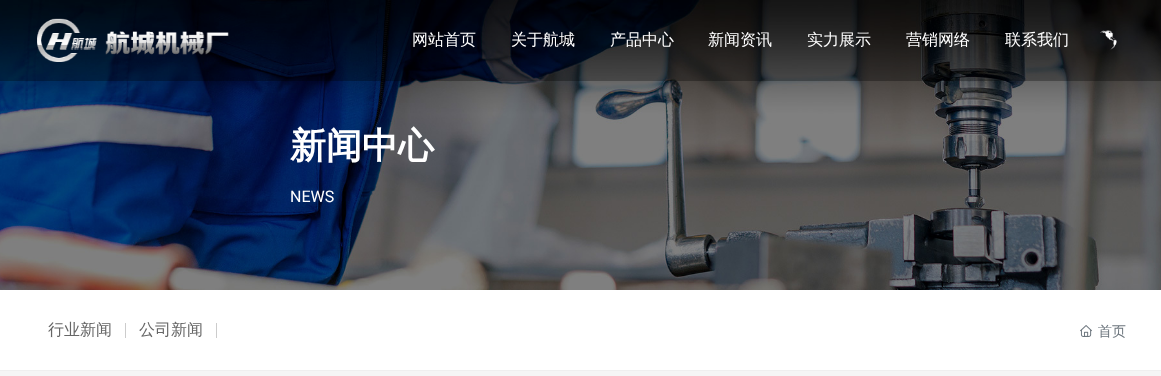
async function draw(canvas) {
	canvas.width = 1161;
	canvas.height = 376;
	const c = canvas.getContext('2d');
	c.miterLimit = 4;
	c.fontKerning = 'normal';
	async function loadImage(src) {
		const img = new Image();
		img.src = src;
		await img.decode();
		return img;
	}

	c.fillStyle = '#fff';
	c.fillRect(0, 0, 1161, 376);
	c.drawImage(await loadImage('img3.png'), 0, 0, 1161, 290);
	c.fillStyle = '#0000004d';
	c.fillRect(0, 0, 1161, 81);
	c.drawImage(await loadImage('img1.png'), 37, 18, 192, 44);
	c.font = '500 16px WenQuanYi Zen Hei';
	c.fillStyle = '#fff';
	for (const [text, x, y] of [
		['网站首页', 412, 45],
		['关于航城', 511, 45],
		['产品中心', 610, 45],
		['新闻资讯', 708, 45],
		['实力展示', 807, 45],
		['营销网络', 906, 45],
		['联系我们', 1005, 45],
	]) {
		c.fillText(text, x, y);
	}
	c.drawImage(await loadImage('img2.png'), 1100, 30, 17, 20);
	c.font = 'bold 36px WenQuanYi Zen Hei';
	c.fillText('新闻中心', 290, 158);
	c.font = '16px Roboto';
	c.fillText('NEWS', 290, 202);
	c.fillStyle = '#efefef';
	c.fillRect(0, 370, 1161, 1);
	c.font = '500 16px WenQuanYi Zen Hei';
	c.fillStyle = '#666';
	c.fillText('行业新闻', 48, 335);
	c.fillStyle = '#ccc';
	c.fillRect(125, 323, 1, 15);
	c.fillStyle = '#666';
	c.fillText('公司新闻', 139, 335);
	c.fillStyle = '#ccc';
	c.fillRect(216, 323, 1, 15);
	c.drawImage(await loadImage('img4.png'), 1080, 325, 12, 12);
	c.font = '500 14px WenQuanYi Zen Hei';
	c.fillStyle = '#6c757d';
	c.fillText('首页', 1098, 336);
	c.fillStyle = '#f5f5f5';
	c.fillRect(0, 371, 1161, 5);
}

draw(document.querySelector('canvas'));
